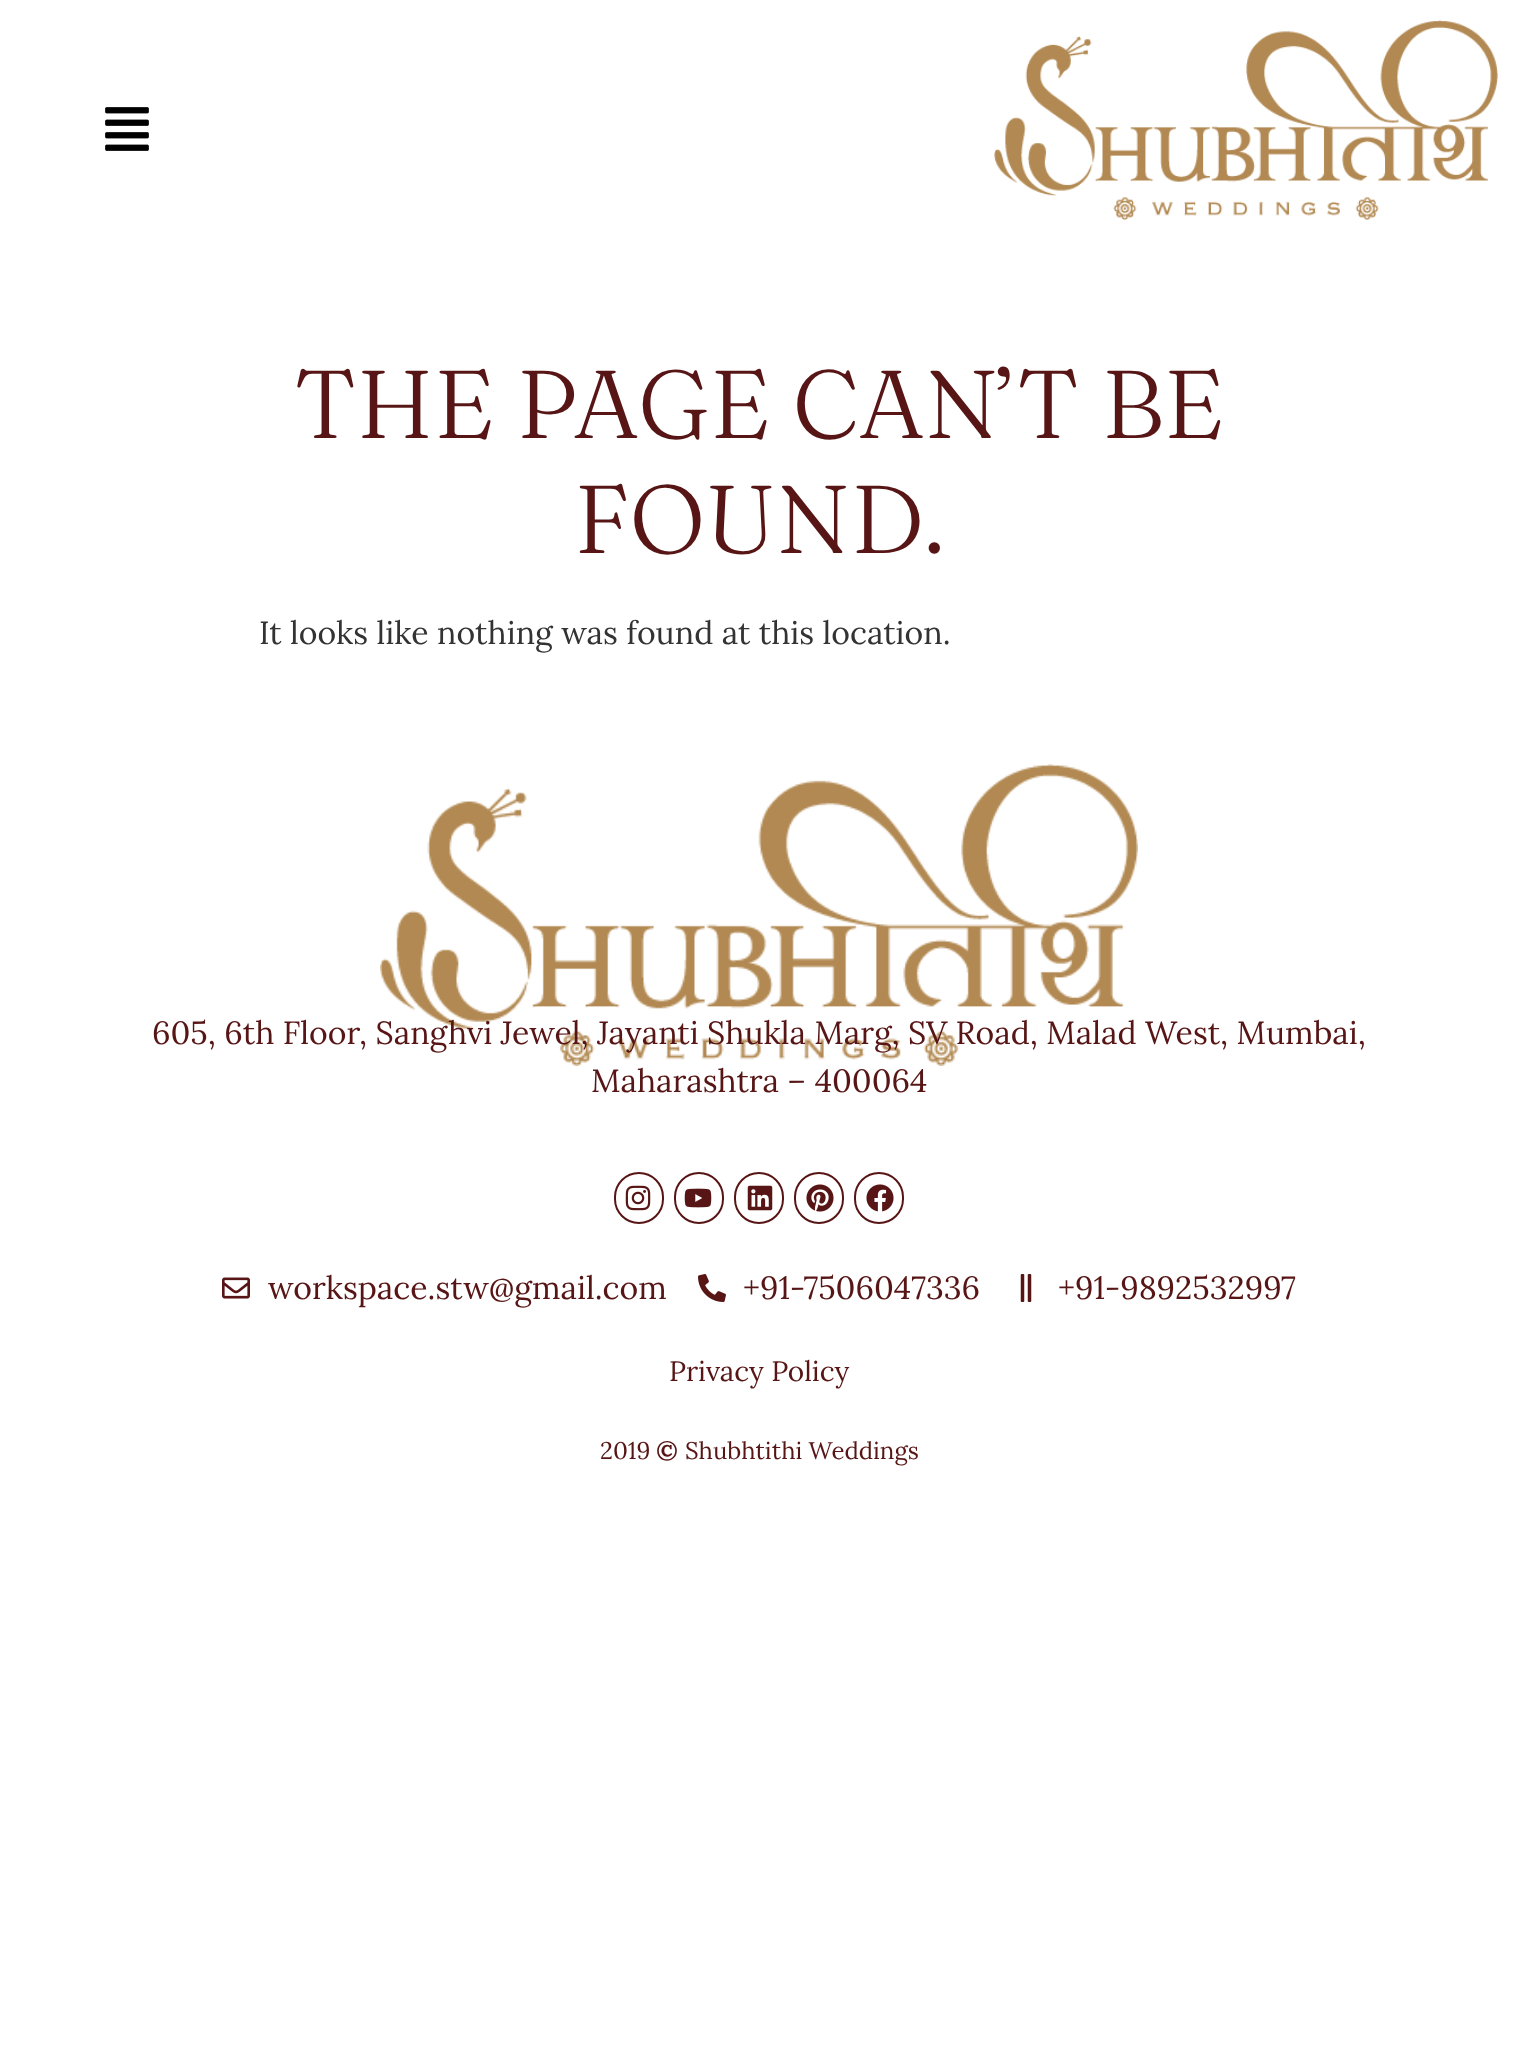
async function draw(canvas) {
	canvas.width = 1518;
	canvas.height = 2071;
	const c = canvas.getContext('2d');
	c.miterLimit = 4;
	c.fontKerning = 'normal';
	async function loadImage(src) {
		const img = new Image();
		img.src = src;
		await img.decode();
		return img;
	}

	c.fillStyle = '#fff';
	c.fillRect(0, 0, 1518, 2071);
	c.drawImage(await loadImage('img1.png'), 105, 107, 44, 44);
	c.drawImage(await loadImage('img2.png'), 994, 20, 504, 200);
	c.font = '300 96px Fraunces';
	c.fillStyle = '#571515';
	c.fillText('THE PAGE CAN’T BE', 294, 438);
	c.fillText('FOUND.', 574, 553);
	c.font = '32px Lora';
	c.fillStyle = '#333';
	c.fillText('It looks like nothing was found at this location.', 259, 644);
	c.drawImage(await loadImage('img3.png'), 380, 764, 758, 302);
	c.fillStyle = '#571515';
	c.fillText('605, 6th Floor, Sanghvi Jewel, Jayanti Shukla Marg, SV Road, Malad West, Mumbai,', 152, 1044);
	c.fillText('Maharashtra – 400064', 591, 1092);
	c.beginPath();
	c.roundRect(615, 1173, 48, 50, 24);
	c.strokeStyle = '#571515';
	c.lineWidth = 2;
	c.stroke();
	c.drawImage(await loadImage('img4.png'), 625, 1185, 26, 26);
	c.beginPath();
	c.roundRect(675, 1173, 48, 50, 24);
	c.stroke();
	c.drawImage(await loadImage('img5.png'), 684, 1188, 28, 20);
	c.beginPath();
	c.roundRect(735, 1173, 48, 50, 24);
	c.stroke();
	c.drawImage(await loadImage('img6.png'), 747, 1185, 26, 26);
	c.beginPath();
	c.roundRect(795, 1173, 48, 50, 24);
	c.stroke();
	c.drawImage(await loadImage('img7.png'), 806, 1184, 28, 28);
	c.beginPath();
	c.roundRect(855, 1173, 48, 50, 24);
	c.stroke();
	c.drawImage(await loadImage('img8.png'), 866, 1184, 28, 28);
	c.drawImage(await loadImage('img9.png'), 222, 1277, 28, 22);
	c.fillText('workspace.stw@gmail.com', 268, 1299);
	c.drawImage(await loadImage('img10.png'), 698, 1274, 28, 28);
	c.fillText('+91-7506047336', 743, 1299);
	c.drawImage(await loadImage('img11.png'), 1020, 1274, 12, 28);
	c.fillText('+91-9892532997', 1058, 1299);
	c.font = '28px Lora';
	c.fillText('Privacy Policy', 669, 1381);
	c.font = '24px Lora';
	c.fillText('2019', 600, 1459);
	c.font = 'bold 24px Lora';
	c.fillText('©', 656, 1459);
	c.font = '24px Lora';
	c.fillText('Shubhtithi Weddings', 685, 1459);
}

draw(document.querySelector('canvas'));
